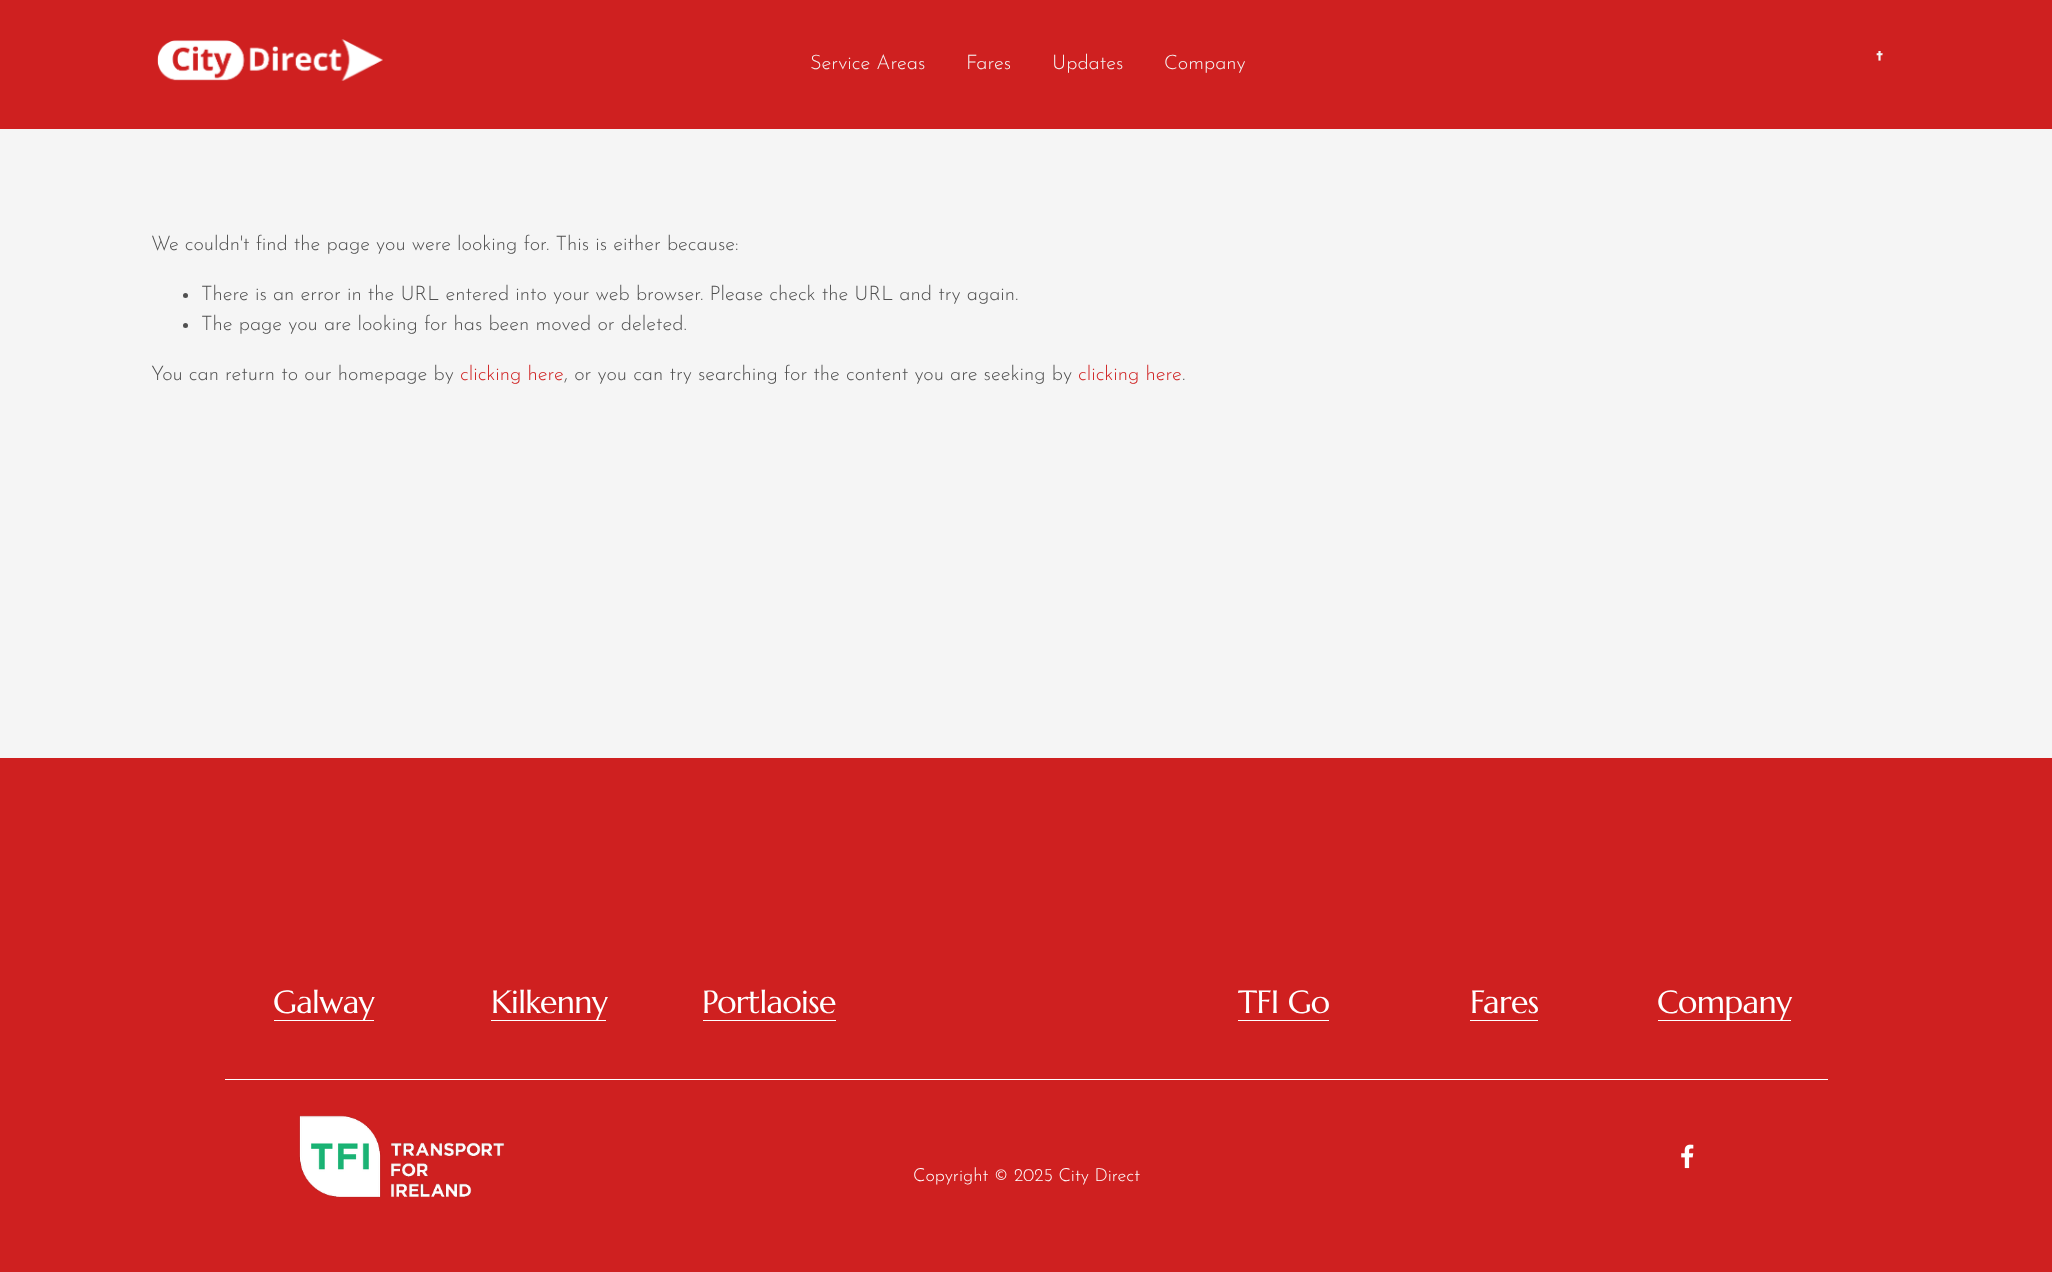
async function draw(canvas) {
	canvas.width = 2052;
	canvas.height = 1272;
	const c = canvas.getContext('2d');
	c.miterLimit = 4;
	c.fontKerning = 'normal';
	async function loadImage(src) {
		const img = new Image();
		img.src = src;
		await img.decode();
		return img;
	}

	c.fillStyle = '#f5f5f5';
	c.fillRect(0, 0, 2052, 1272);
	c.fillStyle = '#cf2020';
	c.fillRect(0, 0, 2052, 129);
	c.drawImage(await loadImage('img1.png'), 157, 39, 226, 42);
	c.font = '300 20px Josefin Sans';
	c.fillStyle = '#f5f5f5';
	for (const [text, x, y] of [
		['Service Areas', 810, 69],
		['Fares', 966, 69],
		['Updates', 1052, 69],
		['Company', 1164, 69],
	]) {
		c.fillText(text, x, y);
	}
	c.drawImage(await loadImage('img2.png'), 1876, 51, 7, 10);
	c.fillStyle = '#505050';
	c.fillText('We couldn\'t find the page you were looking for. This is either because:', 151, 250);
	c.beginPath();
	c.arc(185.5, 295.5, 2.5, 0, 2 * Math.PI);
	c.fill();
	c.fillText('There is an error in the URL entered into your web browser. Please check the URL and try again.', 201, 300);
	c.beginPath();
	c.arc(185.5, 325.5, 2.5, 0, 2 * Math.PI);
	c.fill();
	c.fillText('The page you are looking for has been moved or deleted.', 201, 330);
	c.fillText('You can return to our homepage by', 151, 380);
	c.fillStyle = '#cf2020';
	c.fillText('clicking here', 460, 380);
	c.fillStyle = '#505050';
	c.fillText(', or you can try searching for the content you are seeking by', 564, 380);
	c.fillStyle = '#cf2020';
	c.fillText('clicking here', 1078, 380);
	c.fillStyle = '#505050';
	c.fillText('.', 1182, 380);
	c.fillStyle = '#cf2020';
	c.fillRect(0, 758, 2052, 514);
	c.fillStyle = '#fff';
	c.fillRect(274, 1020, 100, 1);
	c.letterSpacing = '-0.6px';
	c.font = '32px Marcellus';
	c.fillText('Galway', 273, 1013);
	c.fillRect(491, 1020, 115, 1);
	c.fillText('Kilkenny', 491, 1013);
	c.fillText('Portlaoise', 702, 1013);
	c.fillRect(703, 1020, 133, 1);
	c.fillText('TFI Go', 1238, 1013);
	c.fillRect(1238, 1020, 91, 1);
	c.fillText('Fares', 1470, 1013);
	c.fillRect(1470, 1020, 68, 1);
	c.fillRect(1658, 1020, 133, 1);
	c.fillText('Company', 1657, 1013);
	c.fillRect(225, 1079, 1603, 1);
	c.drawImage(await loadImage('img3.png'), 299, 1115, 206, 83);
	c.drawImage(await loadImage('img4.png'), 1681, 1144, 13, 25);
	c.letterSpacing = '0px';
	c.font = '300 18px Josefin Sans';
	c.fillText('Copyright © 2025 City Direct', 913, 1181);
}

draw(document.querySelector('canvas'));
